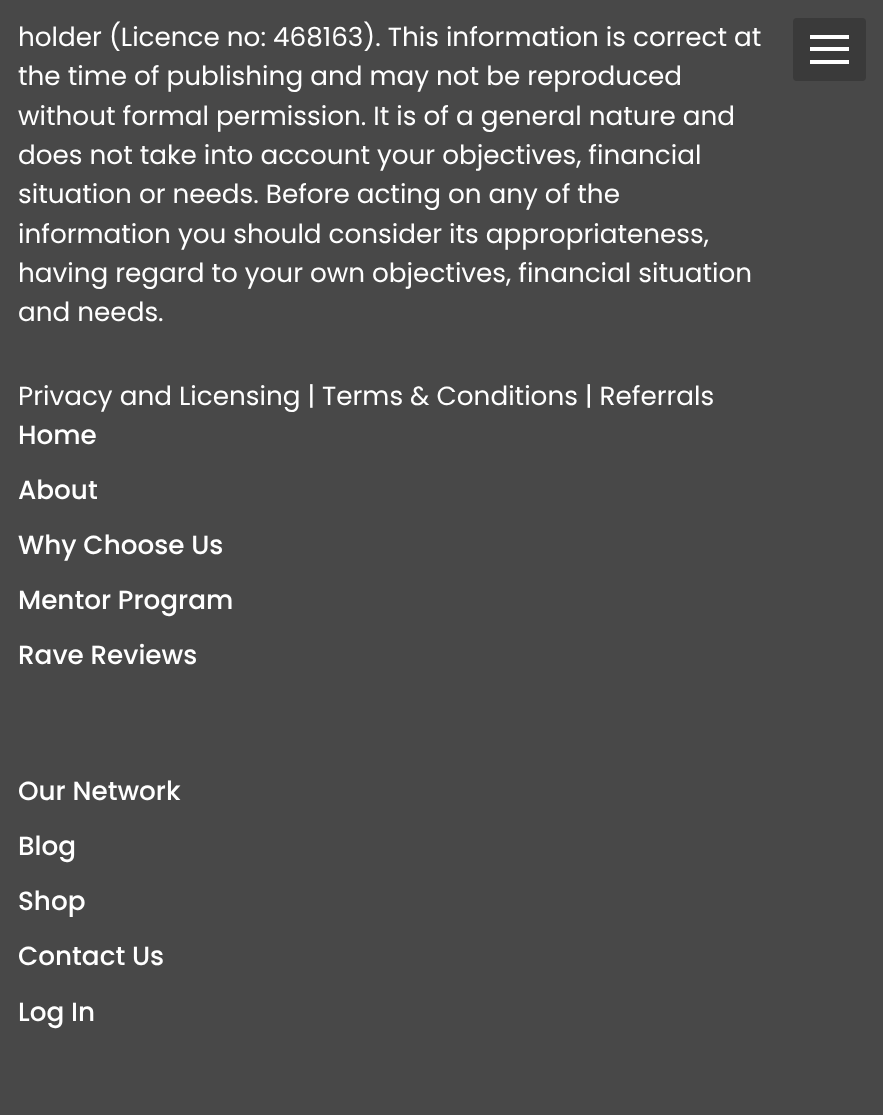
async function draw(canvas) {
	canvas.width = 883;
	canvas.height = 1115;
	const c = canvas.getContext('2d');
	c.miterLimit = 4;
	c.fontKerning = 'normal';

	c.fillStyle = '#484848';
	c.fillRect(0, 0, 883, 1115);
	c.font = '26.25px Poppins';
	c.fillStyle = '#fff';
	for (const [text, x, y] of [
		['holder (Licence no: 468163). This information is correct at', 18, 46],
		['the time of publishing and may not be reproduced', 18, 85],
		['without formal permission. It is of a general nature and', 18, 125],
		['does not take into account your objectives, financial', 18, 164],
		['situation or needs. Before acting on any of the', 18, 203],
		['information you should consider its appropriateness,', 18, 243],
		['having regard to your own objectives, financial situation', 18, 282],
		['and needs.', 18, 321],
		['Privacy and Licensing | Terms & Conditions | Referrals', 18, 405],
	]) {
		c.fillText(text, x, y);
	}
	c.font = '500 26.25px Poppins';
	for (const [text, x, y] of [
		['Home', 18, 444],
		['About', 18, 499],
		['Why Choose Us', 18, 554],
		['Mentor Program', 18, 609],
		['Rave Reviews', 18, 664],
		['Our Network', 18, 800],
		['Blog', 18, 855],
		['Shop', 18, 910],
		['Contact Us', 18, 965],
		['Log In', 18, 1021],
	]) {
		c.fillText(text, x, y);
	}
	c.fillStyle = '#3a3a3a';
	c.beginPath();
	c.roundRect(793, 18, 73, 63, 4);
	c.fill();
	for (const [x, y, w, h, color] of [
		[810, 35, 39, 4, '#fff'],
		[810, 47, 39, 4, '#fff'],
		[810, 60, 39, 4, '#fff'],
	]) {
		c.fillStyle = color;
		c.fillRect(x, y, w, h);
	}
}

draw(document.querySelector('canvas'));
